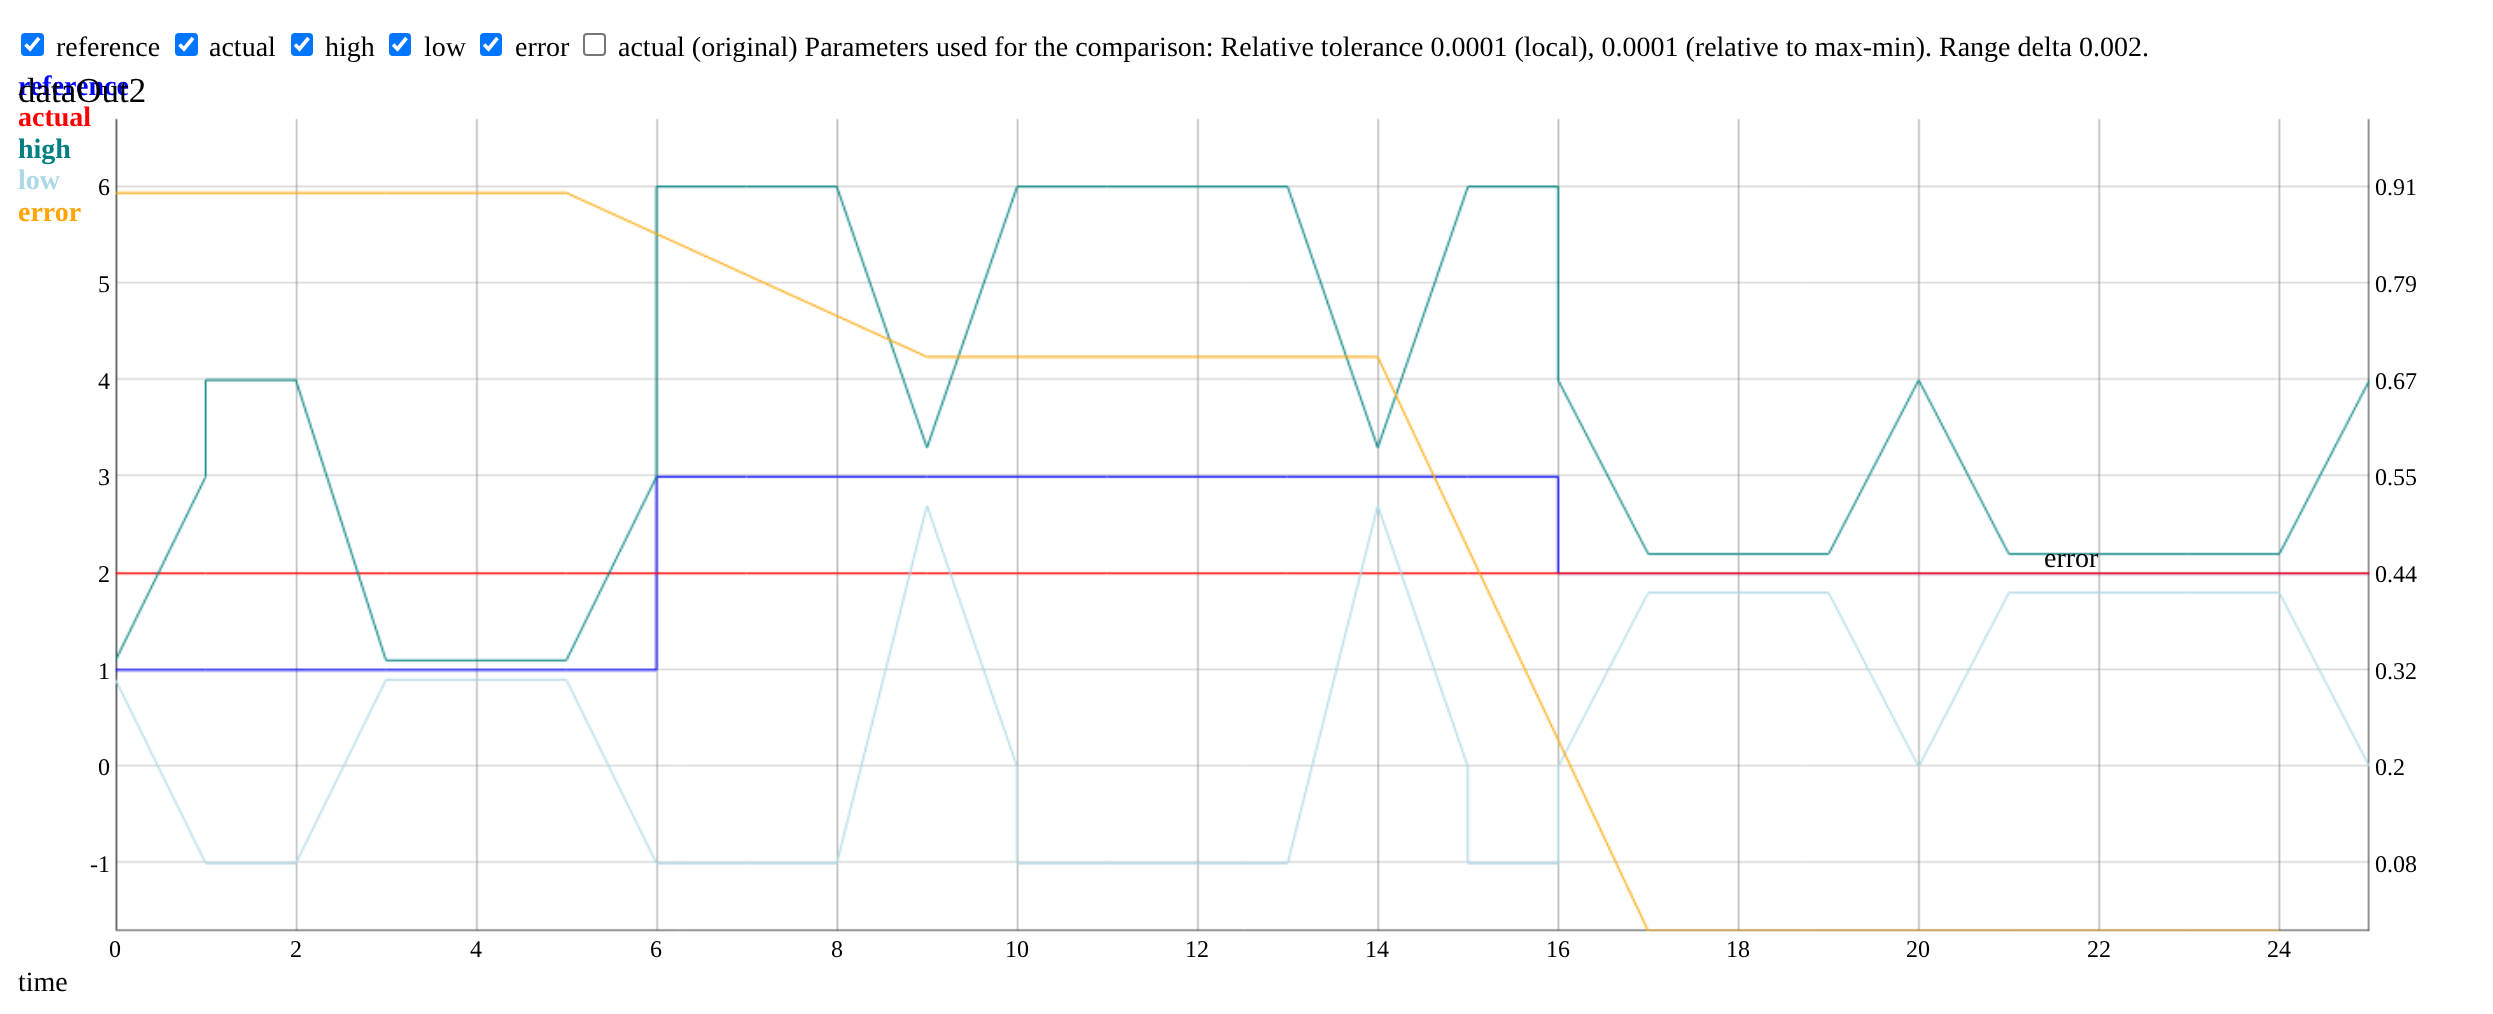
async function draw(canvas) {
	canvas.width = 2493;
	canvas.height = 1014;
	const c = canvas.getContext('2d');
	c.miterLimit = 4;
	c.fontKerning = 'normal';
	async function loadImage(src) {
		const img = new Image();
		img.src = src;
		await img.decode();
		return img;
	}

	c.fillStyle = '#fff';
	c.fillRect(0, 0, 2493, 1014);
	c.fillStyle = '#0075ff';
	c.beginPath();
	c.roundRect(21, 33, 23, 23, 4);
	c.fill();
	c.beginPath();
	c.moveTo(25.5, 44.5);
	c.lineTo(30, 49);
	c.lineTo(39, 38);
	c.strokeStyle = '#fff';
	c.lineWidth = 3.6;
	c.stroke();
	c.font = '28px Liberation Serif';
	c.fillStyle = '#000';
	c.fillText('reference', 56, 56);
	c.fillStyle = '#0075ff';
	c.beginPath();
	c.roundRect(175, 33, 23, 23, 4);
	c.fill();
	c.beginPath();
	c.moveTo(179.5, 44.5);
	c.lineTo(184, 49);
	c.lineTo(193, 38);
	c.stroke();
	c.fillStyle = '#000';
	c.fillText('actual', 209, 56);
	c.fillStyle = '#0075ff';
	c.beginPath();
	c.roundRect(291, 33, 22, 23, 4);
	c.fill();
	c.beginPath();
	c.moveTo(295, 44.5);
	c.lineTo(299.5, 49);
	c.lineTo(308.5, 38);
	c.stroke();
	c.fillStyle = '#000';
	c.fillText('high', 325, 56);
	c.fillStyle = '#0075ff';
	c.beginPath();
	c.roundRect(389, 33, 22, 23, 4);
	c.fill();
	c.beginPath();
	c.moveTo(393, 44.5);
	c.lineTo(397.5, 49);
	c.lineTo(406.5, 38);
	c.stroke();
	c.fillStyle = '#000';
	c.fillText('low', 424, 56);
	c.fillStyle = '#0075ff';
	c.beginPath();
	c.roundRect(480, 33, 22, 23, 4);
	c.fill();
	c.beginPath();
	c.moveTo(484, 44.5);
	c.lineTo(488.5, 49);
	c.lineTo(497.5, 38);
	c.stroke();
	c.fillStyle = '#000';
	c.fillText('error', 515, 56);
	c.beginPath();
	c.roundRect(584, 34, 21, 21, 3);
	c.strokeStyle = '#767676';
	c.lineWidth = 2;
	c.stroke();
	c.fillText('actual (original) Parameters used for the comparison: Relative tolerance 0.0001 (local), 0.0001 (relative to max-min). Range delta 0.002.', 618, 56);
	c.font = 'bold 28px Liberation Serif';
	c.fillStyle = '#00f';
	c.fillText('reference', 18, 95);
	c.fillStyle = '#f00';
	c.fillText('actual', 18, 126);
	c.fillStyle = '#008080';
	c.fillText('high', 18, 158);
	c.fillStyle = '#add8e6';
	c.fillText('low', 18, 189);
	c.fillStyle = '#ffa500';
	c.fillText('error', 18, 221);
	c.font = '35px Liberation Serif';
	c.fillStyle = '#000';
	c.fillText('dataOut2', 18, 102);
	c.font = '24px Liberation Serif';
	c.fillText('6', 98, 195);
	c.drawImage(await loadImage('img1.png'), 115, 118, 2255, 814);
	for (const [text, x, y] of [
		['0.91', 2375, 195],
		['5', 98, 292],
		['0.79', 2375, 292],
		['4', 98, 389],
		['0.67', 2375, 389],
		['3', 98, 485],
		['0.55', 2375, 485],
	]) {
		c.fillText(text, x, y);
	}
	c.font = '28px Liberation Serif';
	c.fillText('error', 2044, 567);
	c.font = '24px Liberation Serif';
	for (const [text, x, y] of [
		['2', 98, 582],
		['0.44', 2375, 582],
		['1', 98, 679],
		['0.32', 2375, 679],
		['0', 98, 775],
		['0.2', 2375, 775],
		['-1', 90, 872],
		['0.08', 2375, 872],
		['0', 109, 957],
		['2', 290, 957],
		['4', 470, 957],
		['6', 650, 957],
		['8', 831, 957],
		['10', 1005, 957],
		['12', 1185, 957],
		['14', 1365, 957],
		['16', 1546, 957],
		['18', 1726, 957],
		['20', 1906, 957],
		['22', 2087, 957],
		['24', 2267, 957],
	]) {
		c.fillText(text, x, y);
	}
	c.font = '28px Liberation Serif';
	c.fillText('time', 18, 991);
}

draw(document.querySelector('canvas'));
